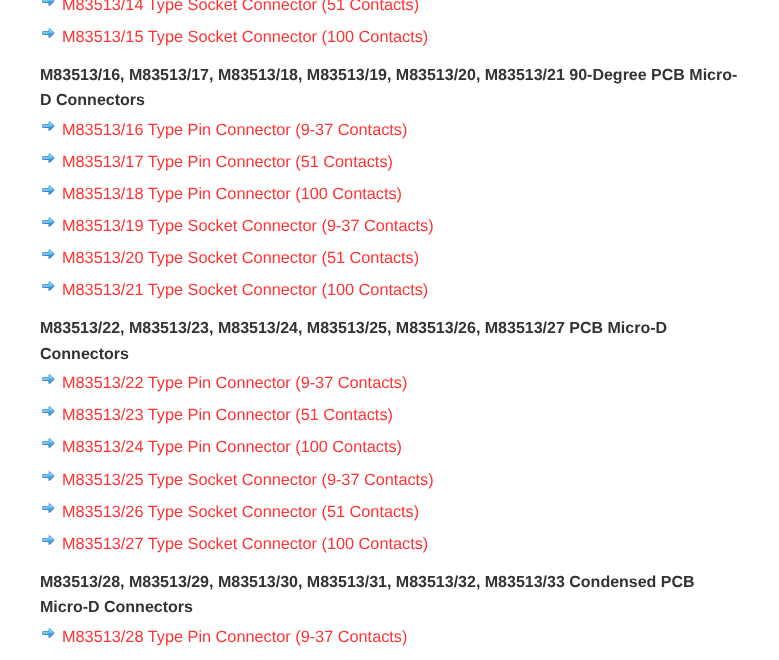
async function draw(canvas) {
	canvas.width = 779;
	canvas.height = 660;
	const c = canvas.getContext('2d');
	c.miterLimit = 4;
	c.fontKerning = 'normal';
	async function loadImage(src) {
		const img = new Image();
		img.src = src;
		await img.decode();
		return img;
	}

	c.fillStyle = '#fff';
	c.fillRect(0, 0, 779, 660);
	c.drawImage(await loadImage('img1.png'), 42, 0, 13, 6);
	c.font = '16.3px Liberation Sans';
	c.fillStyle = '#f33';
	c.fillText('M83513/14 Type Socket Connector (51 Contacts)', 62, 10);
	c.drawImage(await loadImage('img2.png'), 42, 28, 13, 10);
	c.fillText('M83513/15 Type Socket Connector (100 Contacts)', 62, 42);
	c.font = 'bold 16px Liberation Sans';
	c.fillStyle = '#333';
	c.fillText('M83513/16, M83513/17, M83513/18, M83513/19, M83513/20, M83513/21 90-Degree PCB Micro-', 40, 80);
	c.fillText('D Connectors', 40, 105);
	c.drawImage(await loadImage('img2.png'), 42, 121, 13, 10);
	c.font = '16.3px Liberation Sans';
	c.fillStyle = '#f33';
	c.fillText('M83513/16 Type Pin Connector (9-37 Contacts)', 62, 135);
	c.drawImage(await loadImage('img2.png'), 42, 153, 13, 10);
	c.fillText('M83513/17 Type Pin Connector (51 Contacts)', 62, 167);
	c.drawImage(await loadImage('img2.png'), 42, 185, 13, 10);
	c.fillText('M83513/18 Type Pin Connector (100 Contacts)', 62, 199);
	c.drawImage(await loadImage('img2.png'), 42, 217, 13, 10);
	c.fillText('M83513/19 Type Socket Connector (9-37 Contacts)', 62, 231);
	c.drawImage(await loadImage('img2.png'), 42, 249, 13, 10);
	c.fillText('M83513/20 Type Socket Connector (51 Contacts)', 62, 263);
	c.drawImage(await loadImage('img2.png'), 42, 281, 13, 10);
	c.fillText('M83513/21 Type Socket Connector (100 Contacts)', 62, 295);
	c.font = 'bold 16px Liberation Sans';
	c.fillStyle = '#333';
	c.fillText('M83513/22, M83513/23, M83513/24, M83513/25, M83513/26, M83513/27 PCB Micro-D', 40, 333);
	c.fillText('Connectors', 40, 359);
	c.drawImage(await loadImage('img2.png'), 42, 374, 13, 10);
	c.font = '16.3px Liberation Sans';
	c.fillStyle = '#f33';
	c.fillText('M83513/22 Type Pin Connector (9-37 Contacts)', 62, 388);
	c.drawImage(await loadImage('img2.png'), 42, 406, 13, 10);
	c.fillText('M83513/23 Type Pin Connector (51 Contacts)', 62, 420);
	c.drawImage(await loadImage('img2.png'), 42, 438, 13, 10);
	c.fillText('M83513/24 Type Pin Connector (100 Contacts)', 62, 452);
	c.drawImage(await loadImage('img2.png'), 42, 471, 13, 10);
	c.fillText('M83513/25 Type Socket Connector (9-37 Contacts)', 62, 485);
	c.drawImage(await loadImage('img2.png'), 42, 503, 13, 10);
	c.fillText('M83513/26 Type Socket Connector (51 Contacts)', 62, 517);
	c.drawImage(await loadImage('img2.png'), 42, 535, 13, 10);
	c.fillText('M83513/27 Type Socket Connector (100 Contacts)', 62, 549);
	c.font = 'bold 16px Liberation Sans';
	c.fillStyle = '#333';
	c.fillText('M83513/28, M83513/29, M83513/30, M83513/31, M83513/32, M83513/33 Condensed PCB', 40, 587);
	c.fillText('Micro-D Connectors', 40, 612);
	c.drawImage(await loadImage('img2.png'), 42, 628, 13, 10);
	c.font = '16.3px Liberation Sans';
	c.fillStyle = '#f33';
	c.fillText('M83513/28 Type Pin Connector (9-37 Contacts)', 62, 642);
}

draw(document.querySelector('canvas'));
